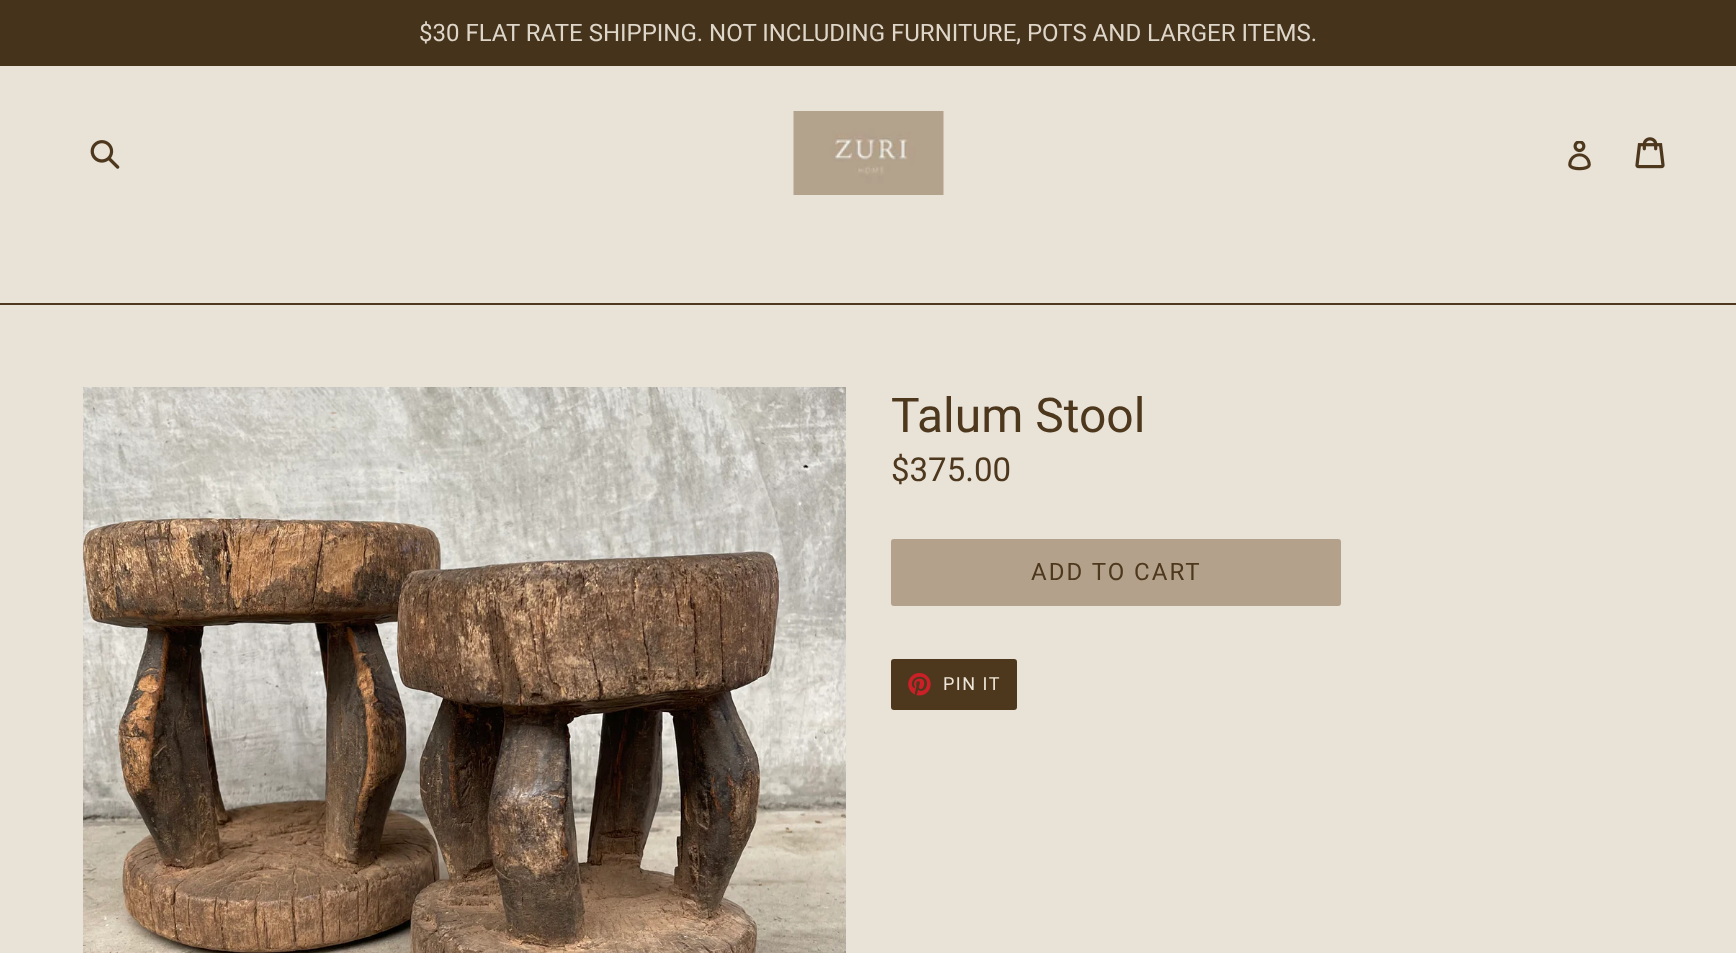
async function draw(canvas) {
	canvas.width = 1736;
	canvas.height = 953;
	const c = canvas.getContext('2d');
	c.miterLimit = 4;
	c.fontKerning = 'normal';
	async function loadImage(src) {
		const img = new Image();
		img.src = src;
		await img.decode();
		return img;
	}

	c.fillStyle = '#e9e2d7';
	c.fillRect(0, 0, 1736, 953);
	c.fillStyle = '#46331b';
	c.fillRect(0, 0, 1736, 66);
	c.font = '24px Roboto';
	c.fillStyle = '#ded6c9';
	c.fillText('$30 FLAT RATE SHIPPING. NOT INCLUDING FURNITURE, POTS AND LARGER ITEMS.', 419, 41);
	c.drawImage(await loadImage('img1.png'), 90, 140, 30, 29);
	c.drawImage(await loadImage('img2.png'), 793, 111, 151, 84);
	c.drawImage(await loadImage('img3.png'), 1568, 141, 23, 30);
	c.drawImage(await loadImage('img4.png'), 1635, 137, 30, 32);
	c.fillStyle = '#4d381e';
	c.fillRect(0, 303, 1736, 2);
	c.drawImage(await loadImage('img5.png'), 83, 387, 763, 566);
	c.font = '48px Roboto';
	c.fillText('Talum Stool', 891, 432);
	c.font = '33px Roboto';
	c.fillText('$375.00', 891, 481);
	c.fillStyle = '#b3a18b';
	c.beginPath();
	c.roundRect(891, 539, 450, 67, 3);
	c.fill();
	c.letterSpacing = '2px';
	c.font = '24px Roboto';
	c.fillStyle = '#4d381e';
	c.fillText('ADD TO CART', 1031, 580);
	c.beginPath();
	c.roundRect(892, 660, 124, 49, 2);
	c.fill();
	c.strokeStyle = '#4d381e';
	c.lineWidth = 2;
	c.stroke();
	c.drawImage(await loadImage('img6.png'), 908, 673, 23, 23);
	c.letterSpacing = '1.5px';
	c.font = '18px Roboto';
	c.fillStyle = '#ede5d7';
	c.fillText('PIN IT', 943, 690);
}

draw(document.querySelector('canvas'));
